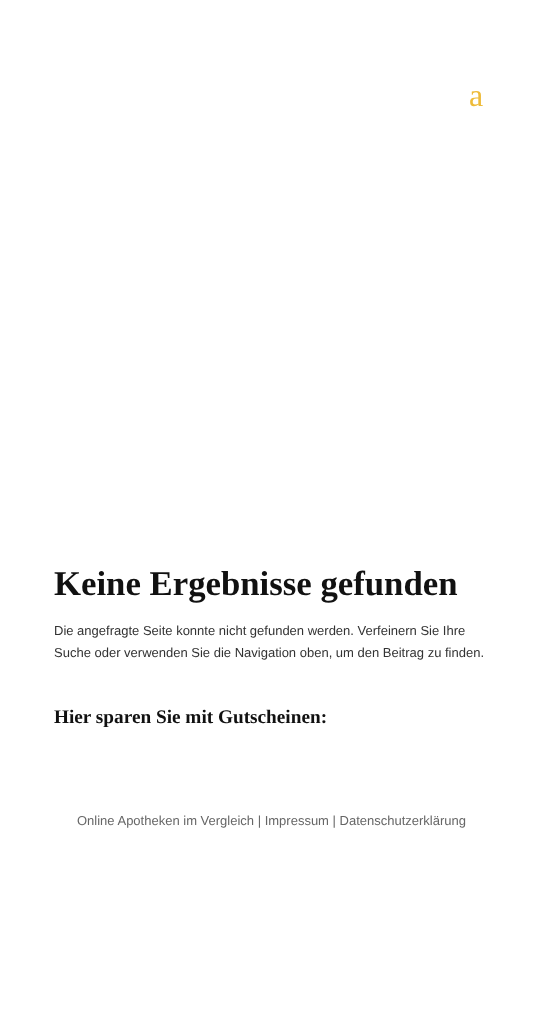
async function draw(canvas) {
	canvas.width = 544;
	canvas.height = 1032;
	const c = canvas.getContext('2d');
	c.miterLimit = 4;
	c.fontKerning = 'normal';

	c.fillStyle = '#fff';
	c.fillRect(0, 0, 544, 1032);
	c.font = '32px Liberation Serif';
	c.fillStyle = '#eebb39';
	c.fillText('a', 469, 106);
	c.font = 'bold 34.75px Liberation Serif';
	c.fillStyle = '#111';
	c.fillText('Keine Ergebnisse gefunden', 54, 595);
	c.font = '13px Liberation Sans';
	c.fillStyle = '#333';
	c.fillText('Die angefragte Seite konnte nicht gefunden werden. Verfeinern Sie Ihre', 54, 635);
	c.fillText('Suche oder verwenden Sie die Navigation oben, um den Beitrag zu finden.', 54, 657);
	c.font = 'bold 19.25px Liberation Serif';
	c.fillStyle = '#111';
	c.fillText('Hier sparen Sie mit Gutscheinen:', 54, 723);
	c.font = '13px Liberation Sans';
	c.fillStyle = '#666';
	c.fillText('Online Apotheken im Vergleich | Impressum | Datenschutzerklärung', 77, 825);
}

draw(document.querySelector('canvas'));
